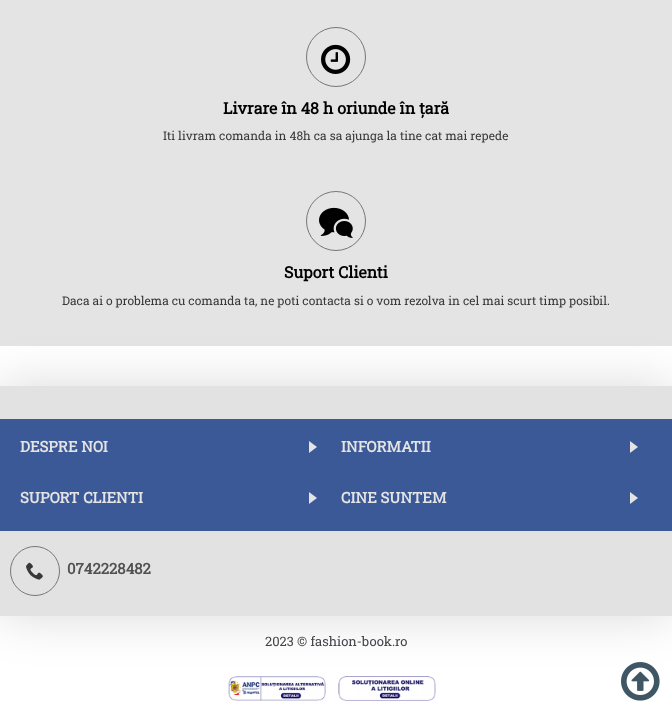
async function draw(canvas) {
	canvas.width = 672;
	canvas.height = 721;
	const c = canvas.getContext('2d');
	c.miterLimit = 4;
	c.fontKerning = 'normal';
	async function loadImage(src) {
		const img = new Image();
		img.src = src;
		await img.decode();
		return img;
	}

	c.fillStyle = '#fff';
	c.fillRect(0, 0, 672, 721);
	c.fillStyle = '#e4e4e4';
	c.fillRect(0, 0, 672, 346);
	c.beginPath();
	c.arc(336, 57, 29.5, 0, 2 * Math.PI);
	c.strokeStyle = '#777';
	c.stroke();
	c.drawImage(await loadImage('img1.png'), 321, 44, 30, 30);
	c.font = 'bold 16px Roboto Slab';
	c.fillStyle = '#000';
	c.fillText('Livrare în 48 h oriunde în țară', 223, 114);
	c.font = '12px Roboto Slab';
	c.fillStyle = '#383838';
	c.fillText('Iti livram comanda in 48h ca sa ajunga la tine cat mai repede', 163, 140);
	c.beginPath();
	c.arc(336, 221, 29.5, 0, 2 * Math.PI);
	c.stroke();
	c.drawImage(await loadImage('img2.png'), 319, 207, 34, 31);
	c.font = 'bold 16px Roboto Slab';
	c.fillStyle = '#000';
	c.fillText('Suport Clienti', 284, 278);
	c.font = '12px Roboto Slab';
	c.fillStyle = '#383838';
	c.fillText('Daca ai o problema cu comanda ta, ne poti contacta si o vom rezolva in cel mai scurt timp posibil.', 62, 305);
	c.fillStyle = '#00000026';
	c.filter = 'blur(25px)';
	c.beginPath();
	c.rect(0, 386, 672, 230);
	c.fill();
	c.filter = 'none';
	c.fillStyle = '#3c5997';
	c.fillRect(0, 419, 672, 112);
	c.fillStyle = '#e2e2e2';
	c.fillRect(0, 386, 672, 33);
	c.font = 'bold 15px Roboto Slab';
	c.fillStyle = '#e4e4e4';
	c.fillText('DESPRE NOI', 20, 452);
	c.beginPath();
	c.moveTo(309, 441);
	c.lineTo(309, 453);
	c.lineTo(317, 447);
	c.closePath();
	c.fill();
	c.fillText('INFORMATII', 341, 452);
	c.beginPath();
	c.moveTo(630, 441);
	c.lineTo(630, 453);
	c.lineTo(638, 447);
	c.closePath();
	c.fill();
	c.fillText('SUPORT CLIENTI', 20, 503);
	c.beginPath();
	c.moveTo(309, 492);
	c.lineTo(309, 504);
	c.lineTo(317, 498);
	c.closePath();
	c.fill();
	c.fillText('CINE SUNTEM', 341, 503);
	c.beginPath();
	c.moveTo(630, 492);
	c.lineTo(630, 504);
	c.lineTo(638, 498);
	c.closePath();
	c.fill();
	c.fillStyle = '#e2e2e2';
	c.fillRect(0, 531, 672, 85);
	c.beginPath();
	c.arc(35, 571, 24.5, 0, 2 * Math.PI);
	c.stroke();
	c.drawImage(await loadImage('img3.png'), 26, 562, 17, 18);
	c.fillStyle = '#505050';
	c.fillText('0742228482', 67, 574);
	c.font = '13px Roboto Slab';
	c.fillStyle = '#444349';
	c.fillText('2023 © fashion-book.ro', 265, 646);
	c.drawImage(await loadImage('img4.png'), 228, 676, 98, 25);
	c.drawImage(await loadImage('img5.png'), 338, 676, 98, 25);
	c.drawImage(await loadImage('img6.png'), 621, 662, 39, 39);
}

draw(document.querySelector('canvas'));
